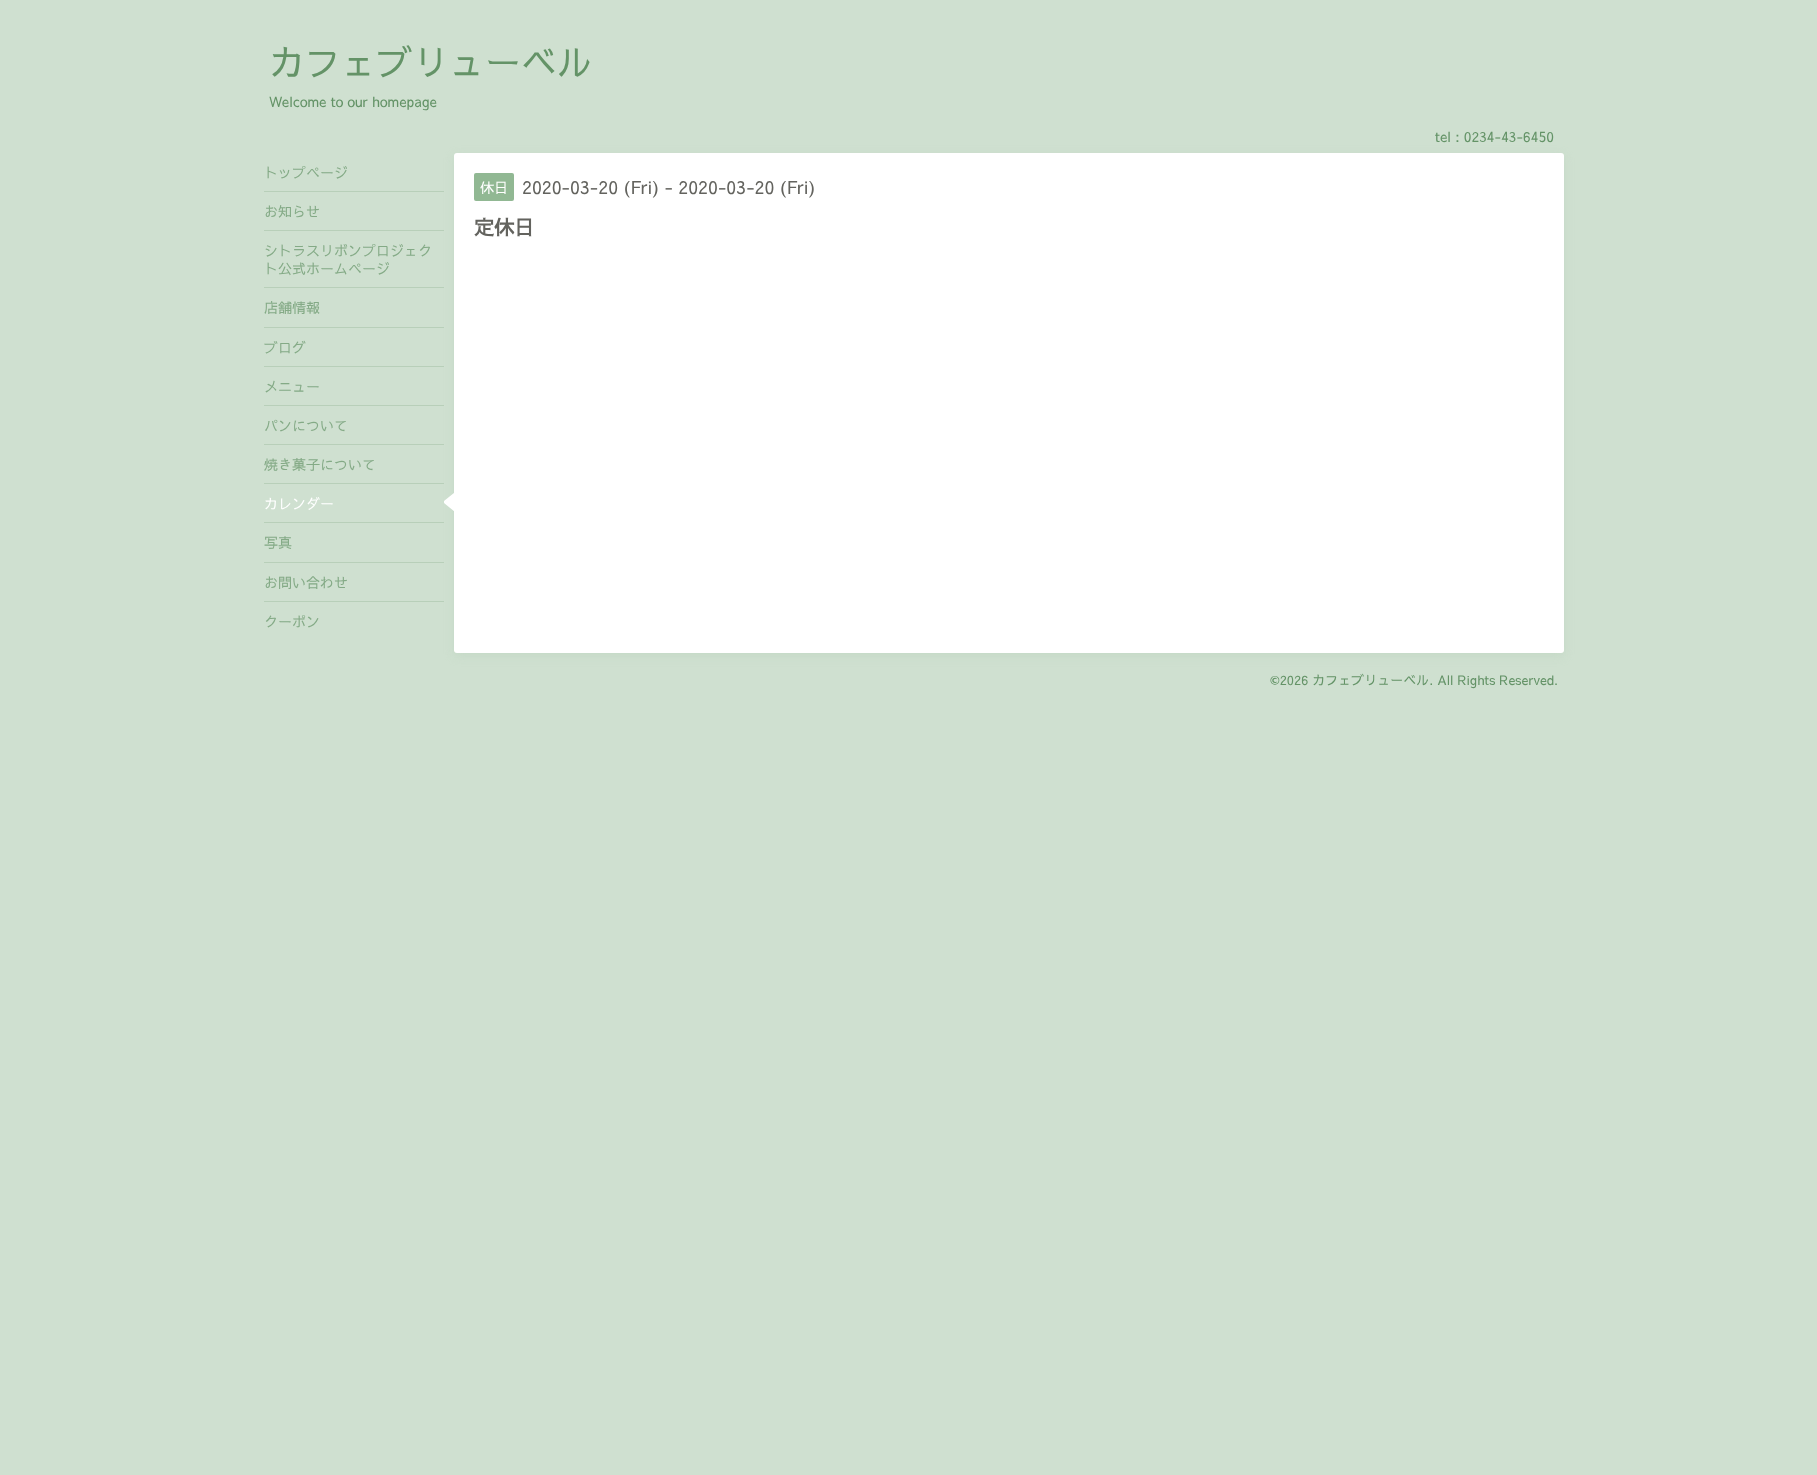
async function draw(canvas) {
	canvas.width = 1817;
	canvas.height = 1475;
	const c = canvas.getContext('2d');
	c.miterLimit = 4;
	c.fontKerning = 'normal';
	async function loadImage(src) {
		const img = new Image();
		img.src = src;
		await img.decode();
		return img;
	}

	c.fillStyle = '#cfe0d0';
	c.fillRect(0, 0, 1817, 1475);
	c.font = '36px Sawarabi Gothic';
	c.fillStyle = '#649367';
	c.fillText('カフェブリューベル', 269, 76);
	c.font = '14px Sawarabi Gothic';
	c.fillText('Welcome to our homepage', 269, 107);
	c.fillText('tel : 0234-43-6450', 1435, 142);
	c.fillStyle = '#84aa86';
	c.fillText('トップページ', 264, 178);
	c.fillStyle = '#b6d0b866';
	c.filter = 'blur(5px)';
	c.beginPath();
	c.roundRect(454, 156, 1110, 500, 3);
	c.fill();
	c.filter = 'none';
	c.fillStyle = '#b8cfb9';
	c.fillRect(264, 191, 180, 1);
	c.fillStyle = '#84aa86';
	c.fillText('お知らせ', 264, 217);
	c.fillStyle = '#b8cfb9';
	c.fillRect(264, 230, 180, 1);
	c.fillStyle = '#84aa86';
	c.fillText('シトラスリボンプロジェク', 264, 256);
	c.fillText('ト公式ホームページ', 264, 274);
	c.fillStyle = '#b8cfb9';
	c.fillRect(264, 287, 180, 1);
	c.fillStyle = '#84aa86';
	c.fillText('店舗情報', 264, 313);
	c.fillStyle = '#b8cfb9';
	c.fillRect(264, 327, 180, 1);
	c.fillStyle = '#84aa86';
	c.fillText('ブログ', 264, 353);
	c.fillStyle = '#b8cfb9';
	c.fillRect(264, 366, 180, 1);
	c.fillStyle = '#84aa86';
	c.fillText('メニュー', 264, 392);
	c.fillStyle = '#b8cfb9';
	c.fillRect(264, 405, 180, 1);
	c.fillStyle = '#84aa86';
	c.fillText('パンについて', 264, 431);
	c.fillStyle = '#b8cfb9';
	c.fillRect(264, 444, 180, 1);
	c.fillStyle = '#84aa86';
	c.fillText('焼き菓子について', 264, 470);
	c.drawImage(await loadImage('img1.png'), 444, 493, 10, 18);
	c.fillStyle = '#b8cfb9';
	c.fillRect(264, 483, 180, 1);
	c.fillStyle = '#fff';
	c.fillText('カレンダー', 264, 509);
	c.fillStyle = '#b8cfb9';
	c.fillRect(264, 522, 180, 1);
	c.fillStyle = '#84aa86';
	c.fillText('写真', 264, 548);
	c.fillStyle = '#b8cfb9';
	c.fillRect(264, 562, 180, 1);
	c.fillStyle = '#84aa86';
	c.fillText('お問い合わせ', 264, 588);
	c.fillStyle = '#b8cfb9';
	c.fillRect(264, 601, 180, 1);
	c.fillStyle = '#84aa86';
	c.fillText('クーポン', 264, 627);
	c.fillStyle = '#fff';
	c.beginPath();
	c.roundRect(454, 153, 1110, 500, 3);
	c.fill();
	c.fillStyle = '#91b893';
	c.beginPath();
	c.roundRect(474, 173, 40, 28, 2);
	c.fill();
	c.fillStyle = '#fff';
	c.fillText('休日', 480, 193);
	c.font = '18px Sawarabi Gothic';
	c.fillStyle = '#63635e';
	c.fillText('2020-03-20 (Fri) - 2020-03-20 (Fri)', 522, 194);
	c.font = 'bold 20px Sawarabi Gothic';
	c.fillText('定休日', 474, 235);
	c.font = '13px Sawarabi Gothic';
	c.fillStyle = '#649367';
	c.fillText('©2026 カフェブリューベル. All Rights Reserved.', 1270, 685);
}

draw(document.querySelector('canvas'));
